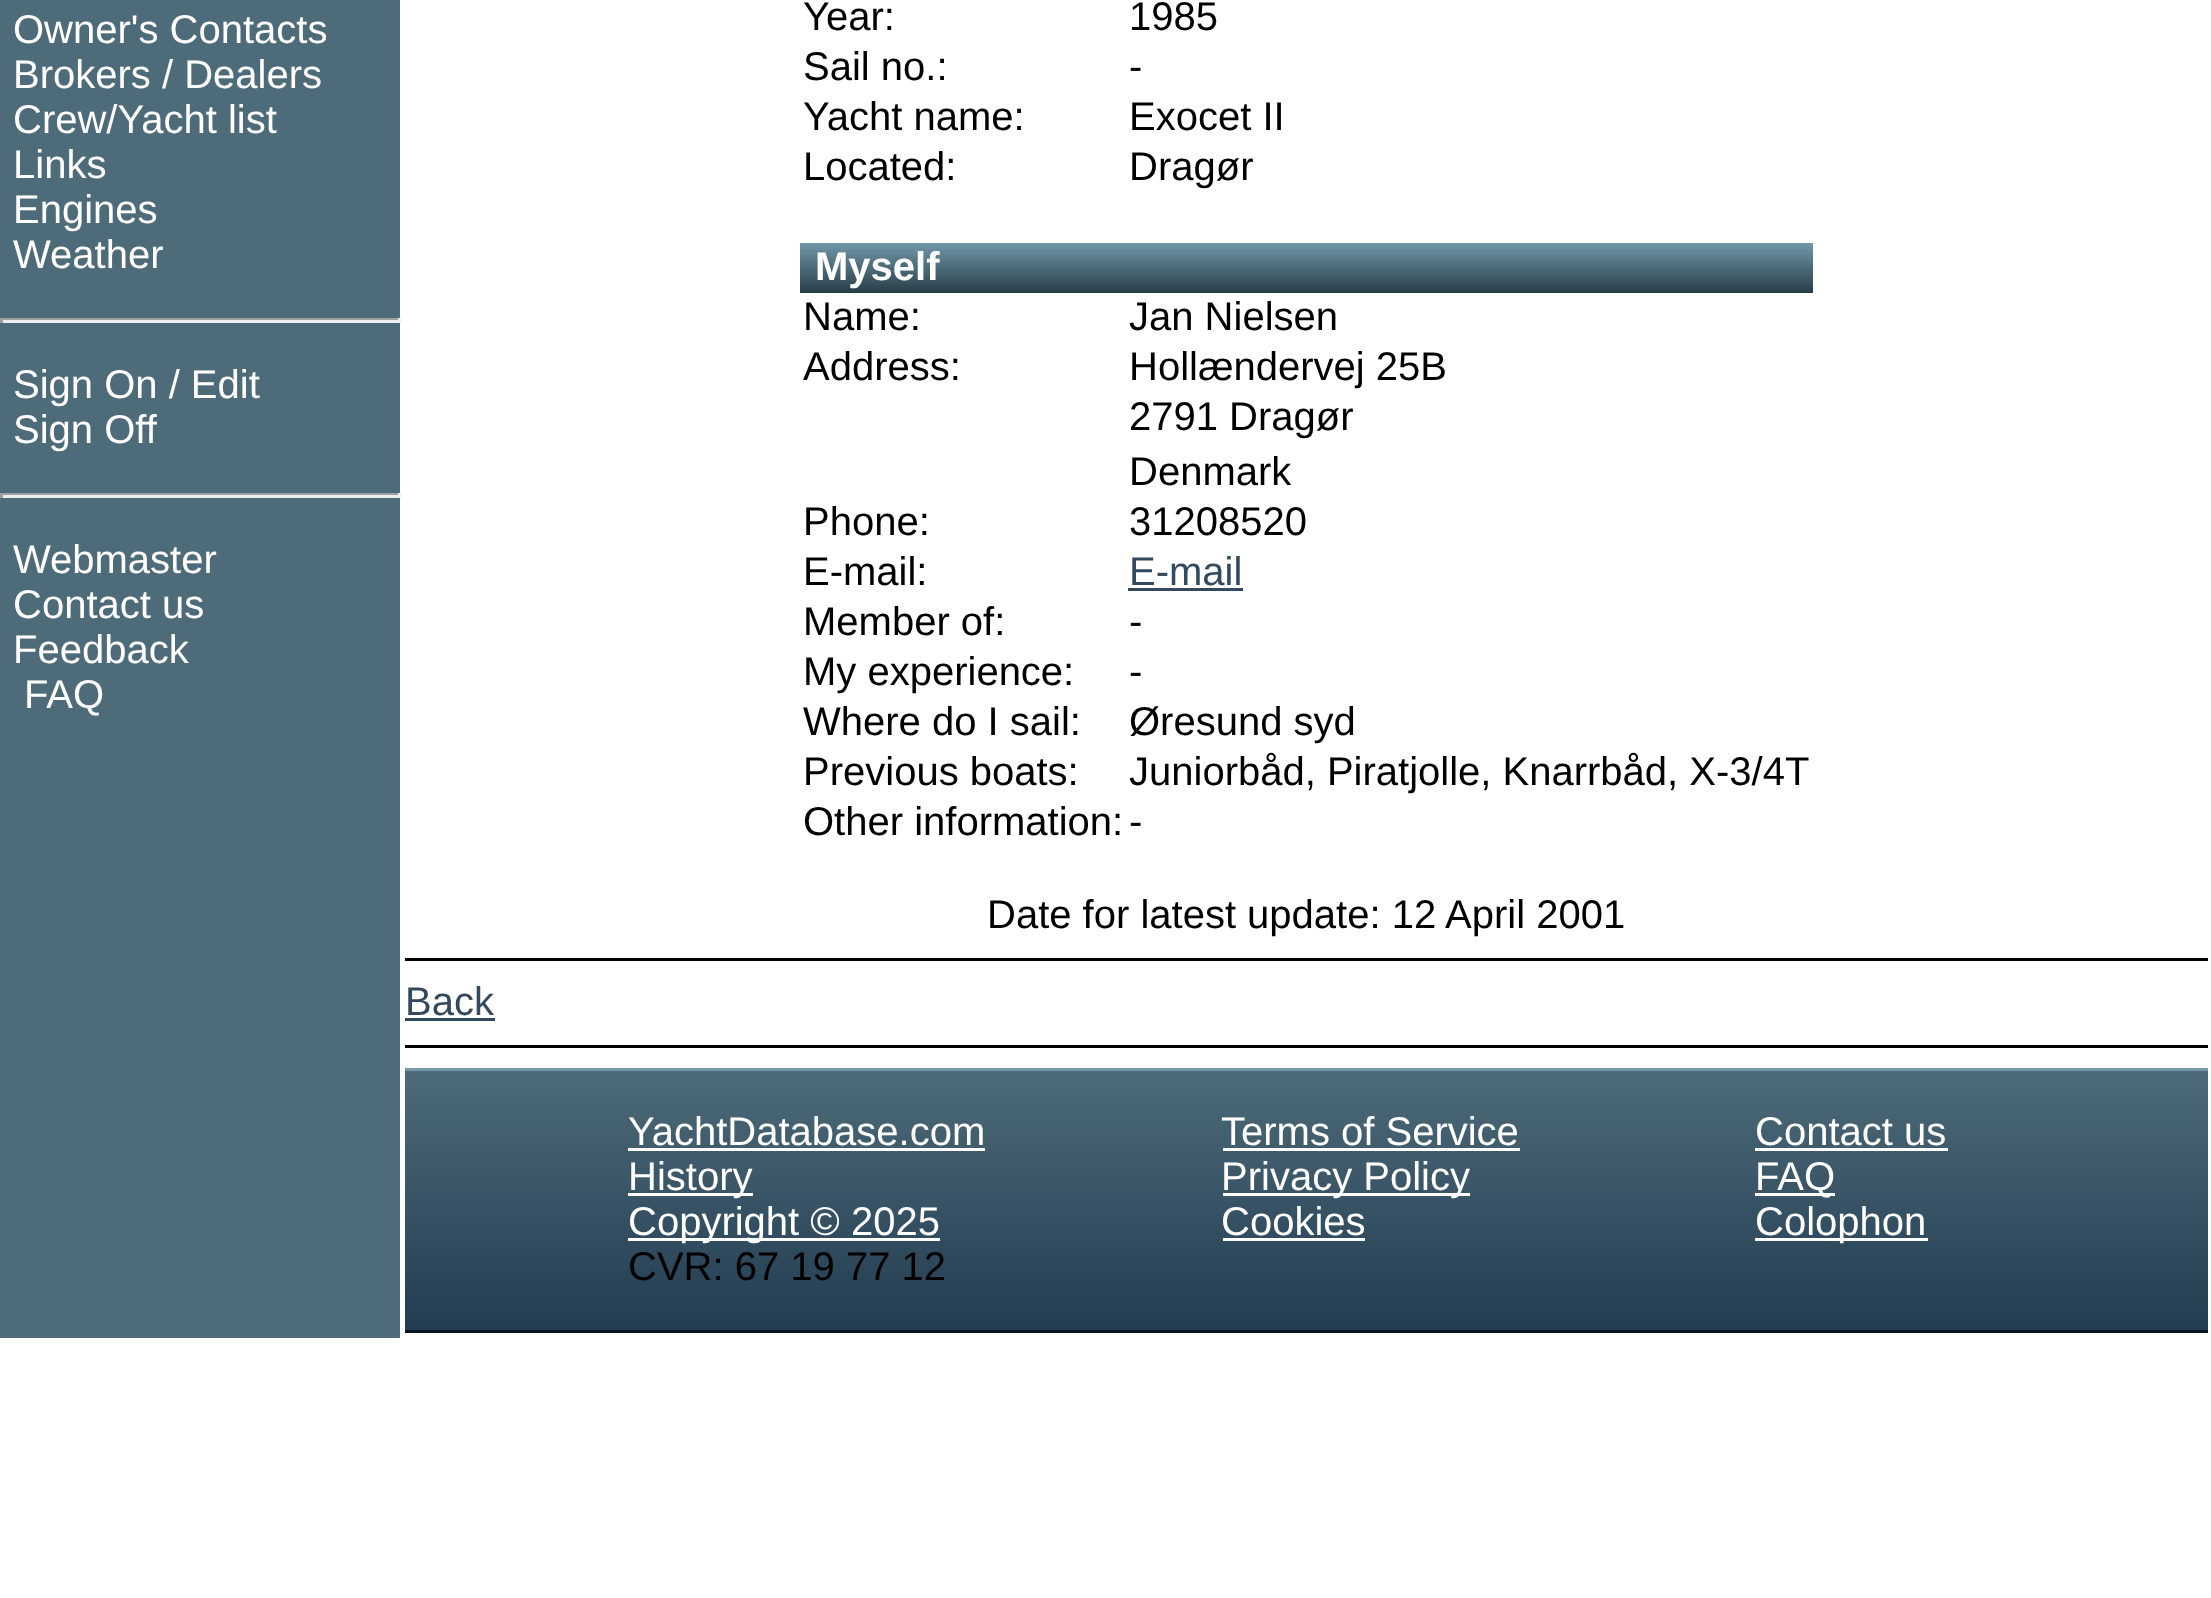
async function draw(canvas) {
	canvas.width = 2211;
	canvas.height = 1598;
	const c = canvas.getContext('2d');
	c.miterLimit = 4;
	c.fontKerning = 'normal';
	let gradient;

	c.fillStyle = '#fff';
	c.fillRect(0, 0, 2211, 1598);
	c.fillStyle = '#4e6b79';
	c.fillRect(0, 0, 400, 1338);
	c.font = '40px Liberation Sans';
	c.fillStyle = '#fff';
	for (const [text, x, y] of [
		['Owner\'s Contacts', 13, 43],
		['Brokers / Dealers', 13, 88],
		['Crew/Yacht list', 13, 133],
		['Links', 13, 178],
		['Engines', 13, 223],
		['Weather', 13, 268],
	]) {
		c.fillText(text, x, y);
	}
	for (const [x, y, w, h, color] of [
		[0, 318, 400, 2, '#9f9f9f'],
		[398, 318, 3, 5, '#eee'],
		[0, 320, 400, 3, '#eee'],
		[0, 318, 3, 5, '#9f9f9f'],
	]) {
		c.fillStyle = color;
		c.fillRect(x, y, w, h);
	}
	c.fillStyle = '#fff';
	c.fillText('Sign On / Edit', 13, 398);
	c.fillText('Sign Off', 13, 443);
	for (const [x, y, w, h, color] of [
		[0, 493, 400, 2, '#9f9f9f'],
		[398, 493, 3, 5, '#eee'],
		[0, 495, 400, 3, '#eee'],
		[0, 493, 3, 5, '#9f9f9f'],
	]) {
		c.fillStyle = color;
		c.fillRect(x, y, w, h);
	}
	c.fillStyle = '#fff';
	for (const [text, x, y] of [
		['Webmaster', 13, 573],
		['Contact us', 13, 618],
		['Feedback', 13, 663],
		['FAQ', 24, 708],
	]) {
		c.fillText(text, x, y);
	}
	c.fillStyle = '#000';
	for (const [text, x, y] of [
		['Year:', 803, 30],
		['1985', 1129, 30],
		['Sail no.:', 803, 80],
		['-', 1129, 80],
		['Yacht name:', 803, 130],
		['Exocet II', 1129, 130],
		['Located:', 803, 180],
		['Dragør', 1129, 180],
	]) {
		c.fillText(text, x, y);
	}
	gradient = c.createLinearGradient(800, 293, 800, 243);
	gradient.addColorStop(0, '#283e47');
	gradient.addColorStop(1, '#7197a8');
	c.fillStyle = gradient;
	c.fillRect(800, 243, 1013, 50);
	c.font = 'bold 40px Liberation Sans';
	c.fillStyle = '#fff';
	c.fillText('Myself', 815, 280);
	c.font = '40px Liberation Sans';
	c.fillStyle = '#000';
	for (const [text, x, y] of [
		['Name:', 803, 330],
		['Jan Nielsen', 1129, 330],
		['Address:', 803, 380],
		['Hollændervej 25B', 1129, 380],
		['2791 Dragør', 1129, 430],
		['Denmark', 1129, 485],
		['Phone:', 803, 535],
		['31208520', 1129, 535],
		['E-mail:', 803, 585],
	]) {
		c.fillText(text, x, y);
	}
	c.fillStyle = '#33495d';
	c.fillText('E-mail', 1129, 585);
	c.fillRect(1128, 588, 115, 3);
	c.fillStyle = '#000';
	for (const [text, x, y] of [
		['Member of:', 803, 635],
		['-', 1129, 635],
		['My experience:', 803, 685],
		['-', 1129, 685],
		['Where do I sail:', 803, 735],
		['Øresund syd', 1129, 735],
		['Previous boats:', 803, 785],
		['Juniorbåd, Piratjolle, Knarrbåd, X-3/4T', 1129, 785],
		['Other information:', 803, 835],
		['-', 1129, 835],
		['Date for latest update: 12 April 2001', 987, 928],
	]) {
		c.fillText(text, x, y);
	}
	c.fillRect(405, 958, 1803, 3);
	c.fillStyle = '#33495d';
	c.fillText('Back', 405, 1015);
	c.fillRect(405, 1018, 90, 3);
	c.fillStyle = '#000';
	c.fillRect(405, 1045, 1803, 3);
	gradient = c.createLinearGradient(405, 1330, 405, 1070);
	gradient.addColorStop(0, '#223c51');
	gradient.addColorStop(1, '#4e6b79');
	c.fillStyle = gradient;
	c.fillRect(405, 1071, 1803, 259);
	c.fillStyle = '#7598a8';
	c.fillRect(405, 1068, 1803, 3);
	c.fillStyle = '#071321';
	c.fillRect(405, 1330, 1803, 3);
	c.fillStyle = '#fff';
	c.fillText('YachtDatabase.com', 628, 1145);
	c.fillRect(628, 1148, 357, 3);
	c.fillRect(628, 1193, 125, 3);
	c.fillText('History', 628, 1190);
	c.fillRect(628, 1238, 312, 3);
	c.fillText('Copyright © 2025', 628, 1235);
	c.fillStyle = '#000';
	c.fillText('CVR: 67 19 77 12', 628, 1280);
	c.fillStyle = '#fff';
	c.fillText('Terms of Service', 1221, 1145);
	c.fillRect(1223, 1148, 297, 3);
	c.fillRect(1223, 1193, 247, 3);
	c.fillText('Privacy Policy', 1221, 1190);
	c.fillText('Cookies', 1221, 1235);
	c.fillRect(1223, 1238, 142, 3);
	c.fillText('Contact us', 1755, 1145);
	c.fillRect(1755, 1148, 193, 3);
	c.fillRect(1755, 1193, 80, 3);
	c.fillText('FAQ', 1755, 1190);
	c.fillRect(1755, 1238, 173, 3);
	c.fillText('Colophon', 1755, 1235);
}

draw(document.querySelector('canvas'));
